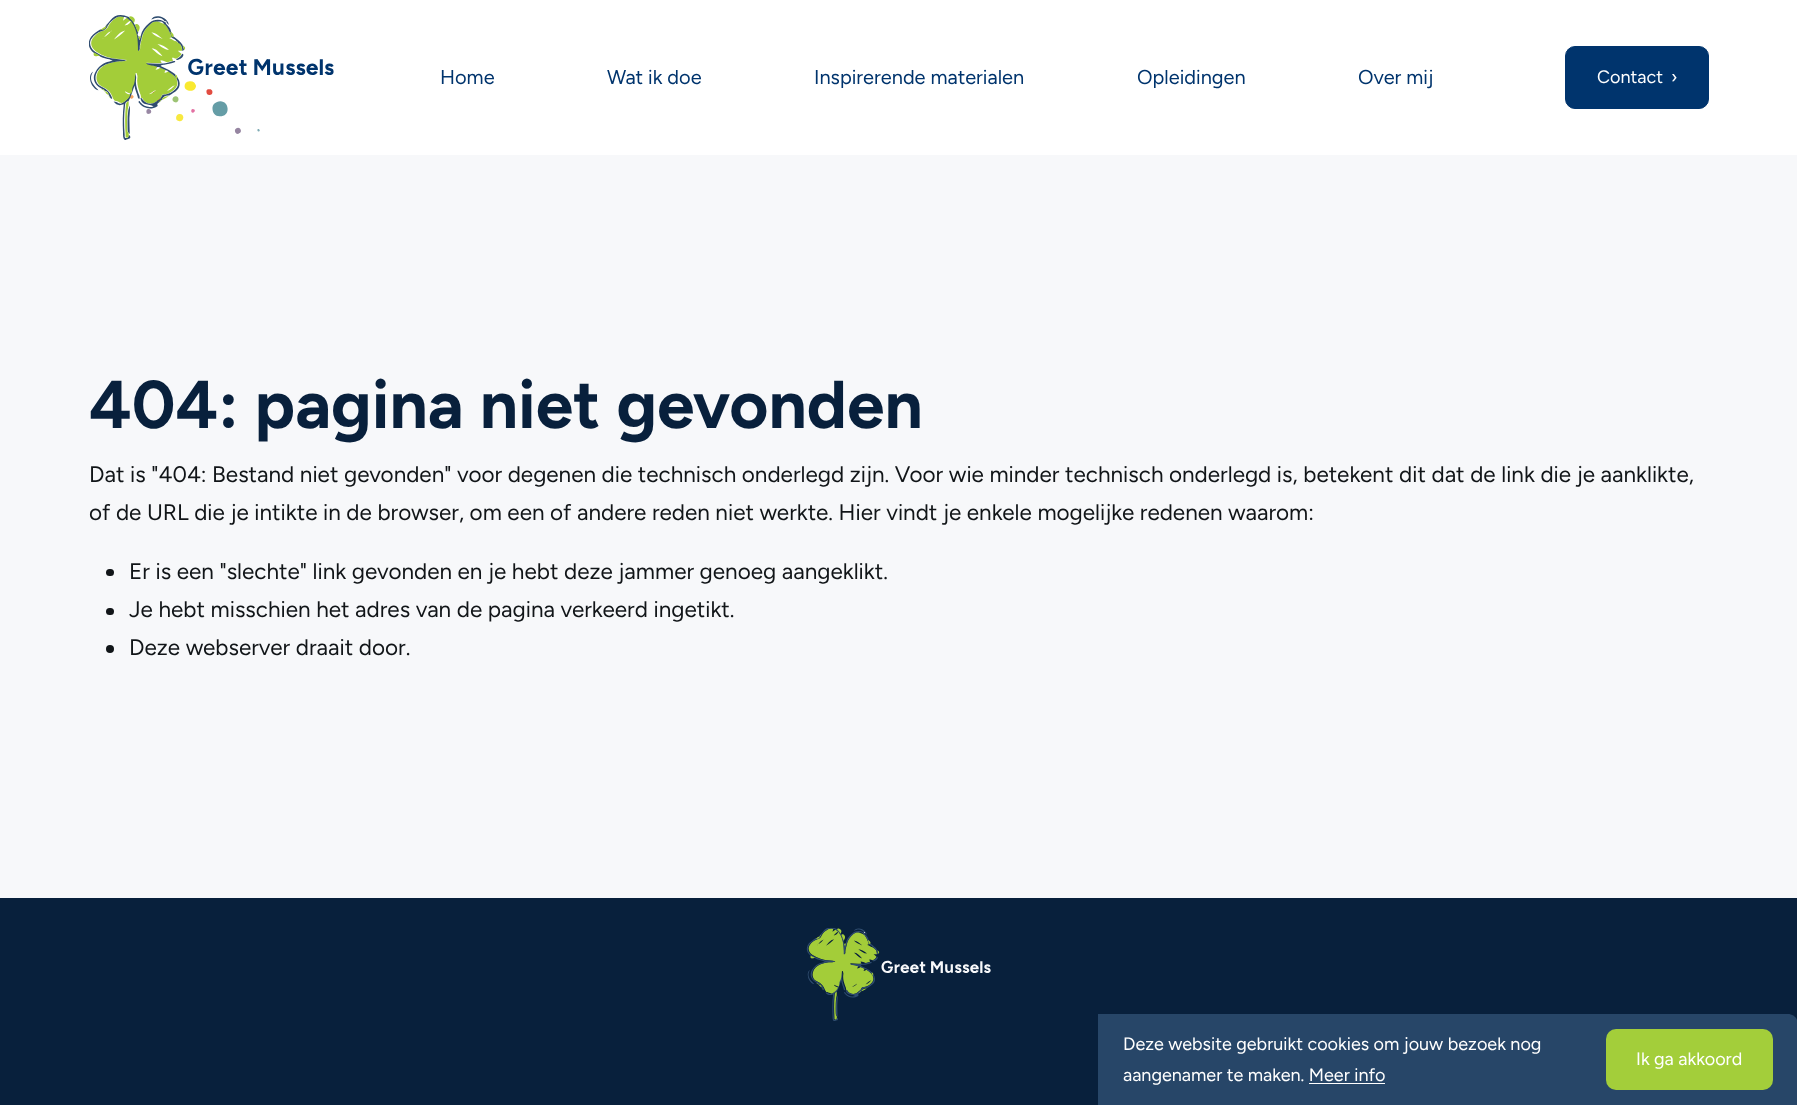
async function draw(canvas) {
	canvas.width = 1797;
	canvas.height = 1105;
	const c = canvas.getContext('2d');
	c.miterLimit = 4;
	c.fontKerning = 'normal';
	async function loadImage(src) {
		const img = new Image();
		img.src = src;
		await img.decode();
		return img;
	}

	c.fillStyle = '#f7f8fa';
	c.fillRect(0, 0, 1797, 1105);
	c.fillStyle = '#fff';
	c.fillRect(0, 0, 1797, 155);
	c.drawImage(await loadImage('img1.png'), 89, 15, 245, 125);
	c.font = '20px Figtree';
	c.fillStyle = '#00346d';
	for (const [text, x, y] of [
		['Home', 440, 84],
		['Wat ik doe', 607, 84],
		['Inspirerende materialen', 814, 84],
		['Opleidingen', 1137, 84],
		['Over mij', 1358, 84],
	]) {
		c.fillText(text, x, y);
	}
	c.beginPath();
	c.roundRect(1565.5, 46.5, 143, 62, 9.5);
	c.fill();
	c.strokeStyle = '#00346d';
	c.stroke();
	c.font = '18px Figtree';
	c.fillStyle = '#fff';
	c.fillText('Contact', 1597, 83);
	c.fillText('›', 1671, 83);
	c.font = 'bold 67.5px Figtree';
	c.fillStyle = '#08203c';
	c.fillText('404: pagina niet gevonden', 89, 428);
	c.font = '22.5px Figtree';
	c.fillStyle = '#111518';
	c.fillText('Dat is "404: Bestand niet gevonden" voor degenen die technisch onderlegd zijn. Voor wie minder technisch onderlegd is, betekent dit dat de link die je aanklikte,', 89, 482);
	c.fillText('of de URL die je intikte in de browser, om een of andere reden niet werkte. Hier vindt je enkele mogelijke redenen waarom:', 89, 520);
	c.beginPath();
	c.roundRect(106, 569, 8, 7, 3.5);
	c.fill();
	c.fillText('Er is een "slechte" link gevonden en je hebt deze jammer genoeg aangeklikt.', 129, 579);
	c.beginPath();
	c.roundRect(106, 608, 8, 7, 3.5);
	c.fill();
	c.fillText('Je hebt misschien het adres van de pagina verkeerd ingetikt.', 129, 617);
	c.beginPath();
	c.arc(110, 649, 4, 0, 2 * Math.PI);
	c.fill();
	c.fillText('Deze webserver draait door.', 129, 655);
	c.fillStyle = '#08203c';
	c.fillRect(0, 898, 1797, 207);
	c.drawImage(await loadImage('img2.png'), 806, 928, 185, 93);
	c.fillStyle = '#274668';
	c.beginPath();
	c.moveTo(1098, 1014);
	c.lineTo(1788, 1014);
	c.bezierCurveTo(1793.5, 1014, 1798, 1018.5, 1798, 1024);
	c.lineTo(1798, 1105);
	c.lineTo(1098, 1105);
	c.closePath();
	c.fill();
	c.font = '18px Figtree';
	c.fillStyle = '#fff';
	c.fillText('Deze website gebruikt cookies om jouw bezoek nog', 1123, 1050);
	c.fillText('aangenamer te maken. Meer info', 1123, 1081);
	c.fillRect(1309, 1083, 76, 1);
	c.fillStyle = '#a3ce3a';
	c.beginPath();
	c.roundRect(1606, 1029, 167, 61, 10);
	c.fill();
	c.fillStyle = '#fff';
	c.fillText('Ik ga akkoord', 1636, 1065);
}

draw(document.querySelector('canvas'));
